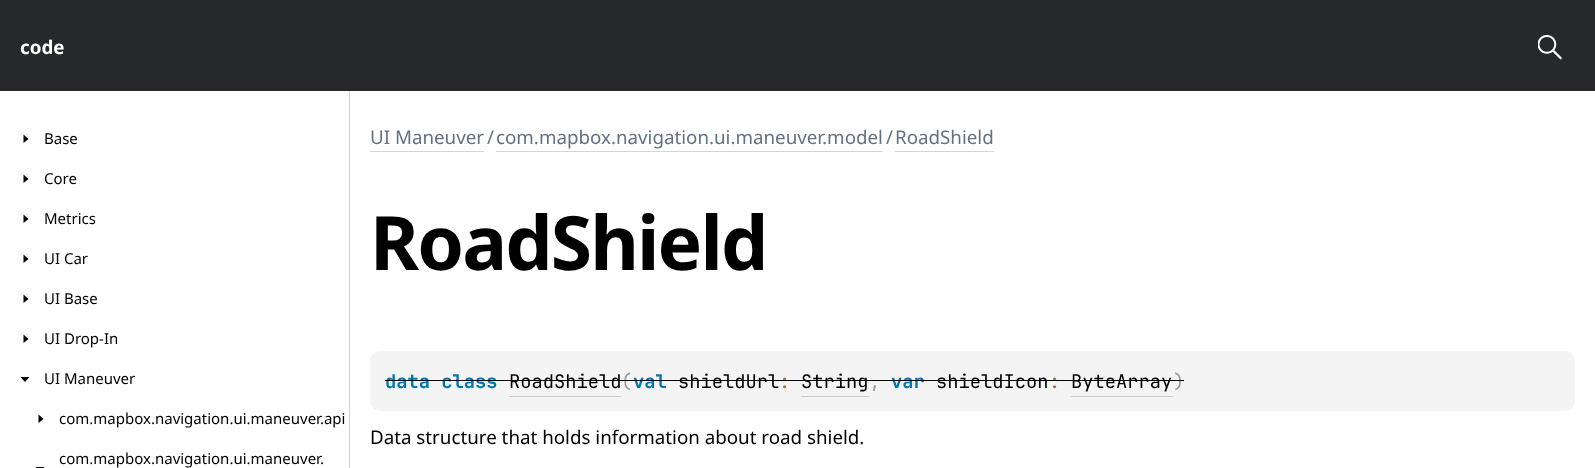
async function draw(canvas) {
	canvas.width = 1595;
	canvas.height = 468;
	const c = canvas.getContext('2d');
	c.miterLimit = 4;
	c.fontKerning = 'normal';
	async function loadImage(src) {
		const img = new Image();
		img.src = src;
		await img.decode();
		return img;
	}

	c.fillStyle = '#fff';
	c.fillRect(0, 0, 1595, 468);
	c.fillStyle = '#27282c';
	c.fillRect(0, 0, 1595, 91);
	c.font = 'bold 18.75px Noto Sans';
	c.fillStyle = '#fff';
	c.fillText('code', 20, 54);
	c.drawImage(await loadImage('img1.png'), 1538, 35, 24, 25);
	c.fillStyle = '#d4d4d5';
	c.fillRect(349, 91, 1, 377);
	c.fillStyle = '#000';
	c.beginPath();
	c.moveTo(28.5, 139);
	c.lineTo(23.5, 143);
	c.lineTo(23.5, 134.5);
	c.closePath();
	c.fill();
	c.font = '15px Noto Sans';
	c.fillText('Base', 44, 144);
	c.beginPath();
	c.moveTo(28.5, 179);
	c.lineTo(23.5, 183);
	c.lineTo(23.5, 174.5);
	c.closePath();
	c.fill();
	c.fillText('Core', 44, 184);
	c.beginPath();
	c.moveTo(28.5, 219);
	c.lineTo(23.5, 223);
	c.lineTo(23.5, 214.5);
	c.closePath();
	c.fill();
	c.fillText('Metrics', 44, 224);
	c.beginPath();
	c.moveTo(28.5, 259);
	c.lineTo(23.5, 263);
	c.lineTo(23.5, 254.5);
	c.closePath();
	c.fill();
	c.fillText('UI Car', 44, 264);
	c.beginPath();
	c.moveTo(28.5, 299);
	c.lineTo(23.5, 303);
	c.lineTo(23.5, 294.5);
	c.closePath();
	c.fill();
	c.fillText('UI Base', 44, 304);
	c.beginPath();
	c.moveTo(28.5, 339);
	c.lineTo(23.5, 343);
	c.lineTo(23.5, 334.5);
	c.closePath();
	c.fill();
	c.fillText('UI Drop-In', 44, 344);
	c.beginPath();
	c.moveTo(25, 382);
	c.lineTo(20.5, 377);
	c.lineTo(29.5, 377);
	c.closePath();
	c.fill();
	c.fillText('UI Maneuver', 44, 384);
	c.beginPath();
	c.moveTo(43.5, 419);
	c.lineTo(38.5, 423);
	c.lineTo(38.5, 414.5);
	c.closePath();
	c.fill();
	c.fillText('com.mapbox.navigation.ui.maneuver.api', 59, 424);
	c.beginPath();
	c.moveTo(40, 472);
	c.lineTo(35.5, 467);
	c.lineTo(44.5, 467);
	c.closePath();
	c.fill();
	c.fillText('com.mapbox.navigation.ui.maneuver.', 59, 464);
	c.font = '18.75px Noto Sans';
	c.fillStyle = '#637282';
	c.fillText('UI Maneuver', 370, 144);
	c.fillStyle = '#d4d4d5';
	c.fillRect(370, 151, 114, 1);
	c.fillStyle = '#637282';
	c.fillText('/', 487, 144);
	c.fillText('com.mapbox.navigation.ui.maneuver.model', 496, 144);
	c.fillStyle = '#d4d4d5';
	c.fillRect(496, 151, 387, 1);
	c.fillStyle = '#637282';
	c.fillText('/', 886, 144);
	c.fillText('RoadShield', 895, 144);
	c.fillStyle = '#d4d4d5';
	c.fillRect(895, 151, 99, 1);
	c.letterSpacing = '-1.9px';
	c.font = 'bold 75px Noto Sans';
	c.fillStyle = '#000';
	c.fillText('RoadShield', 370, 270);
	c.fillStyle = '#f4f4f5';
	c.beginPath();
	c.roundRect(370, 351, 1205, 60, 10);
	c.fill();
	c.letterSpacing = '0px';
	c.font = 'bold 18.75px JetBrains Mono';
	c.fillStyle = '#07a';
	c.fillText('data class', 385, 388);
	c.fillStyle = '#000';
	c.fillRect(385, 380, 124, 1);
	c.font = '18.75px JetBrains Mono';
	c.fillText('RoadShield', 509, 388);
	c.fillStyle = '#cbcbcd';
	c.fillRect(509, 396, 112, 1);
	c.fillStyle = '#000';
	c.fillRect(509, 380, 112, 1);
	c.fillStyle = '#999';
	c.fillText('(', 621, 388);
	c.fillStyle = '#000';
	c.fillRect(621, 380, 12, 1);
	c.font = 'bold 18.75px JetBrains Mono';
	c.fillStyle = '#07a';
	c.fillText('val', 633, 388);
	c.fillStyle = '#000';
	c.fillRect(633, 380, 45, 1);
	c.font = '18.75px JetBrains Mono';
	c.fillText('shieldUrl', 678, 388);
	c.fillRect(678, 380, 101, 1);
	c.fillStyle = '#9a6e3a';
	c.fillText(':', 779, 388);
	c.fillStyle = '#000';
	c.fillRect(779, 380, 22, 1);
	c.fillText('String', 801, 388);
	c.fillRect(801, 380, 90, 1);
	c.fillStyle = '#999';
	c.fillText(',', 869, 388);
	c.fillStyle = '#cbcbcd';
	c.fillRect(801, 396, 68, 1);
	c.font = 'bold 18.75px JetBrains Mono';
	c.fillStyle = '#07a';
	c.fillText('var', 891, 388);
	c.font = '18.75px JetBrains Mono';
	c.fillStyle = '#000';
	c.fillText('shieldIcon', 936, 388);
	c.fillRect(891, 380, 45, 1);
	c.fillRect(936, 380, 113, 1);
	c.fillStyle = '#9a6e3a';
	c.fillText(':', 1049, 388);
	c.fillStyle = '#000';
	c.fillRect(1049, 380, 22, 1);
	c.fillText('ByteArray', 1071, 388);
	c.fillStyle = '#cbcbcd';
	c.fillRect(1071, 396, 102, 1);
	c.fillStyle = '#000';
	c.fillRect(1071, 380, 102, 1);
	c.fillStyle = '#999';
	c.fillText(')', 1173, 388);
	c.fillStyle = '#000';
	c.fillRect(1173, 380, 11, 1);
	c.font = '18.75px Noto Sans';
	c.fillText('Data structure that holds information about road shield.', 370, 444);
}

draw(document.querySelector('canvas'));
